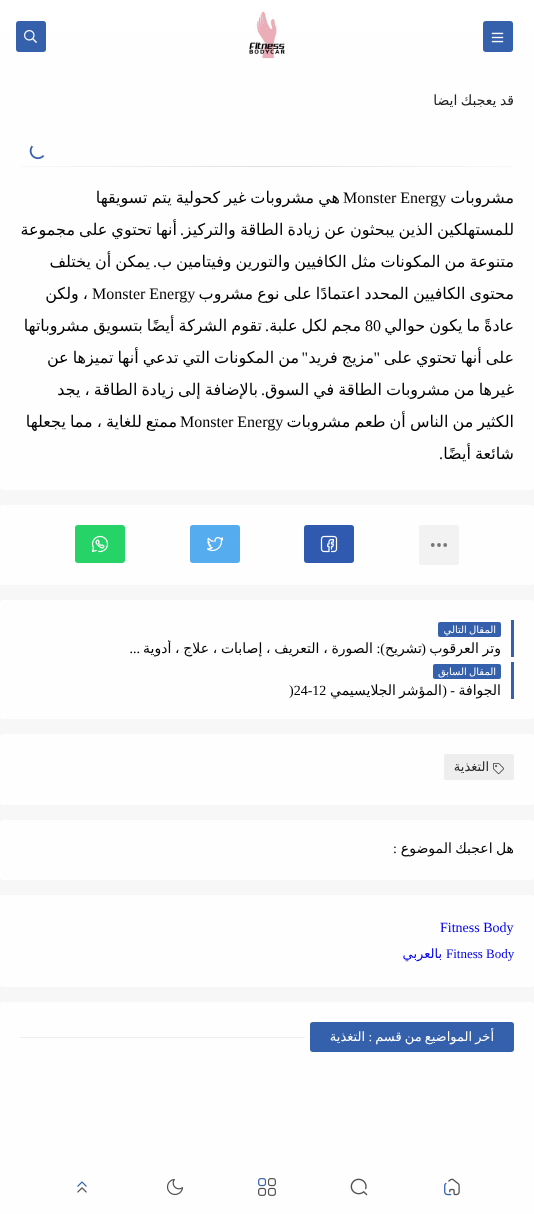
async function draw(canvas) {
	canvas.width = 534;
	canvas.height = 1214;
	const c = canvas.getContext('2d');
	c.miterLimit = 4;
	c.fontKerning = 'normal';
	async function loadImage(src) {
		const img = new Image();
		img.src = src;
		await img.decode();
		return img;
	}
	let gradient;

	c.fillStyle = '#f7f7f7';
	c.fillRect(0, 0, 534, 1214);
	c.fillStyle = '#fefefe';
	c.beginPath();
	c.roundRect(0, 30, 534, 460, 3);
	c.fill();
	c.fillStyle = '#fff';
	c.fillRect(0, 0, 534, 32);
	c.fillStyle = '#3560ab';
	c.beginPath();
	c.roundRect(483, 21, 30, 31, 3);
	c.fill();
	c.drawImage(await loadImage('img1.png'), 491, 32, 13, 11);
	c.drawImage(await loadImage('img2.png'), 249, 11, 36, 48);
	c.beginPath();
	c.roundRect(16, 21, 30, 31, 3);
	c.fill();
	c.drawImage(await loadImage('img3.png'), 24, 30, 13, 13);
	c.save();
	c.beginPath();
	c.rect(20, 65, 494, 102);
	c.clip();
	c.wordSpacing = '-1px';
	c.direction = 'rtl';
	c.font = '14px DejaVu Sans';
	c.fillStyle = '#222';
	c.fillText('قد يعجبك ايضا', 514, 105);
	c.restore();
	c.drawImage(await loadImage('img4.png'), 29, 145, 16, 15);
	gradient = c.createLinearGradient(514, 167, 20, 166);
	gradient.addColorStop(0, '#f7f9f8');
	gradient.addColorStop(0.5, '#dfe2e3');
	gradient.addColorStop(1, '#f7f9f8');
	c.fillStyle = gradient;
	c.fillRect(20, 166, 494, 1);
	c.direction = 'rtl';
	c.font = '16px DejaVu Sans';
	c.fillStyle = '#000';
	c.fillText('مشروبات', 514, 203);
	c.wordSpacing = '-1px';
	c.fillText('هي مشروبات غير كحولية يتم تسويقها', 340, 203);
	c.wordSpacing = '0px';
	c.direction = 'ltr';
	c.font = '16px Liberation Serif';
	c.fillText('Monster Energy', 343, 203);
	c.wordSpacing = '-1px';
	c.direction = 'rtl';
	c.font = '16px DejaVu Sans';
	c.fillText('للمستهلكين الذين يبحثون عن زيادة الطاقة والتركيز', 514, 235);
	c.wordSpacing = '0px';
	c.font = '16px Liberation Serif';
	c.fillText('.', 184, 235);
	c.wordSpacing = '-1px';
	c.font = '16px DejaVu Sans';
	c.fillText('أنها تحتوي على مجموعة', 177, 235);
	c.fillText('متنوعة من المكونات مثل الكافيين والتورين وفيتامين ب', 514, 267);
	c.wordSpacing = '0px';
	c.font = '16px Liberation Serif';
	c.fillText('.', 157, 267);
	c.wordSpacing = '-1px';
	c.font = '16px DejaVu Sans';
	c.fillText('يمكن أن يختلف', 150, 267);
	c.fillText('محتوى الكافيين المحدد اعتمادًا على نوع مشروب', 514, 299);
	c.wordSpacing = '0px';
	c.direction = 'ltr';
	c.font = '16px Liberation Serif';
	c.fillText('Monster Energy', 92, 299);
	c.wordSpacing = '-1px';
	c.direction = 'rtl';
	c.font = '16px DejaVu Sans';
	c.fillText('، ولكن', 88, 299);
	c.fillText('عادةً ما يكون حوالي', 514, 331);
	c.wordSpacing = '0px';
	c.direction = 'ltr';
	c.font = '16px Liberation Serif';
	c.fillText('80', 365, 331);
	c.wordSpacing = '-1px';
	c.direction = 'rtl';
	c.font = '16px DejaVu Sans';
	c.fillText('مجم لكل علبة', 361, 331);
	c.wordSpacing = '0px';
	c.font = '16px Liberation Serif';
	c.fillText('.', 269, 331);
	c.wordSpacing = '-1px';
	c.font = '16px DejaVu Sans';
	c.fillText('تقوم الشركة أيضًا بتسويق مشروباتها', 262, 331);
	c.fillText('على أنها تحتوي على', 514, 363);
	c.wordSpacing = '0px';
	c.font = '16px Liberation Serif';
	c.fillText('"', 380, 363);
	c.wordSpacing = '-1px';
	c.font = '16px DejaVu Sans';
	c.fillText('مزيج فريد', 374, 363);
	c.fillText('من المكونات التي تدعي أنها تميزها عن', 299, 363);
	c.wordSpacing = '0px';
	c.font = '16px Liberation Serif';
	c.fillText('"', 308, 363);
	c.wordSpacing = '-1px';
	c.font = '16px DejaVu Sans';
	c.fillText('غيرها من مشروبات الطاقة في السوق', 514, 395);
	c.fillText('بالإضافة إلى زيادة الطاقة ، يجد', 258, 395);
	c.wordSpacing = '0px';
	c.font = '16px Liberation Serif';
	c.fillText('.', 265, 395);
	c.wordSpacing = '-1px';
	c.font = '16px DejaVu Sans';
	c.fillText('الكثير من الناس أن طعم مشروبات', 514, 427);
	c.wordSpacing = '0px';
	c.direction = 'ltr';
	c.font = '16px Liberation Serif';
	c.fillText('Monster Energy', 180, 427);
	c.wordSpacing = '-1px';
	c.direction = 'rtl';
	c.font = '16px DejaVu Sans';
	c.fillText('ممتع للغاية ، مما يجعلها', 177, 427);
	c.fillText('شائعة أيضًا', 514, 459);
	c.wordSpacing = '0px';
	c.font = '16px Liberation Serif';
	c.fillText('.', 443, 459);
	c.fillStyle = '#fefefe';
	c.beginPath();
	c.roundRect(0, 505, 534, 80, 3);
	c.fill();
	c.fillStyle = '#f2f2f2';
	c.beginPath();
	c.roundRect(419, 525, 40, 40, 3);
	c.fill();
	c.fillStyle = '#767676';
	c.beginPath();
	c.arc(439, 545, 1.9, 0, 2 * Math.PI);
	c.fill();
	c.beginPath();
	c.arc(445.2, 545, 1.9, 0, 2 * Math.PI);
	c.fill();
	c.beginPath();
	c.arc(432.8, 545, 1.9, 0, 2 * Math.PI);
	c.fill();
	c.fillStyle = '#3059b0';
	c.beginPath();
	c.roundRect(304, 525, 50, 38, 3);
	c.fill();
	c.drawImage(await loadImage('img5.png'), 320, 535, 18, 18);
	c.fillStyle = '#55acef';
	c.beginPath();
	c.roundRect(190, 525, 50, 38, 3);
	c.fill();
	c.drawImage(await loadImage('img6.png'), 207, 537, 17, 15);
	c.fillStyle = '#25d366';
	c.beginPath();
	c.roundRect(75, 525, 50, 38, 3);
	c.fill();
	c.drawImage(await loadImage('img7.png'), 91, 535, 18, 18);
	c.fillStyle = '#fefefe';
	c.beginPath();
	c.roundRect(0, 600, 534, 119, 3);
	c.fill();
	c.fillStyle = '#3560ab';
	c.fillRect(511, 620, 3, 37);
	c.beginPath();
	c.roundRect(438, 622, 63, 15, 2);
	c.fill();
	c.wordSpacing = '-1px';
	c.font = '10px DejaVu Sans';
	c.fillStyle = '#fff';
	c.fillText('المقال التالي', 496, 633);
	c.wordSpacing = '-0.75px';
	c.font = '14px DejaVu Sans';
	c.fillStyle = '#000';
	c.fillText('وتر العرقوب', 501, 653);
	c.wordSpacing = '0px';
	c.font = '14px Liberation Serif';
	c.fillText('(', 426, 653);
	c.font = '14px DejaVu Sans';
	c.fillText('تشريح', 422, 653);
	c.save();
	c.beginPath();
	c.rect(30, 640, 471, 17);
	c.clip();
	c.wordSpacing = '-0.75px';
	c.fillText('الصورة ، التعريف ، إصابات ، علاج ، أدوية', 373, 653);
	c.restore();
	c.font = '14px Liberation Serif';
	c.fillText('):', 385, 653);
	c.fillText('...', 140, 653);
	c.fillStyle = '#3560ab';
	c.fillRect(511, 662, 3, 37);
	c.beginPath();
	c.roundRect(433, 664, 68, 15, 2);
	c.fill();
	c.wordSpacing = '-1px';
	c.font = '10px DejaVu Sans';
	c.fillStyle = '#fff';
	c.fillText('المقال السابق', 496, 675);
	c.wordSpacing = '0px';
	c.font = '14px DejaVu Sans';
	c.fillStyle = '#000';
	c.fillText('الجوافة', 501, 695);
	c.font = '14px Liberation Serif';
	c.fillText('- (', 455, 695);
	c.font = '14px DejaVu Sans';
	c.fillText('المؤشر', 442, 695);
	c.fillText('الجلايسيمي', 396, 695);
	c.direction = 'ltr';
	c.font = '14px Liberation Serif';
	c.fillText(')24-12', 289, 695);
	c.fillStyle = '#fefefe';
	c.beginPath();
	c.roundRect(0, 734, 534, 71, 3);
	c.fill();
	c.fillStyle = '#eee';
	c.beginPath();
	c.roundRect(444, 754, 70, 26, 2);
	c.fill();
	c.drawImage(await loadImage('img8.png'), 493, 763, 11, 11);
	c.direction = 'rtl';
	c.font = '13px DejaVu Sans';
	c.fillStyle = '#292929';
	c.fillText('التغذية', 489, 771);
	c.fillStyle = '#fefefe';
	c.beginPath();
	c.roundRect(0, 820, 534, 60, 3);
	c.fill();
	c.wordSpacing = '-1px';
	c.font = '14px DejaVu Sans';
	c.fillStyle = '#000';
	c.fillText('هل اعجبك الموضوع', 514, 853);
	c.wordSpacing = '0px';
	c.font = '14px Liberation Serif';
	c.fillText(':', 397, 853);
	c.fillStyle = '#fefefe';
	c.beginPath();
	c.roundRect(0, 895, 534, 92, 3);
	c.fill();
	c.direction = 'ltr';
	c.fillStyle = '#00e';
	c.fillText('Fitness Body', 440, 932);
	c.font = '13px Liberation Serif';
	c.fillText('Fitness Body', 446, 958);
	c.direction = 'rtl';
	c.font = '13px DejaVu Sans';
	c.fillText('بالعربي', 442, 958);
	c.fillStyle = '#fefefe';
	c.beginPath();
	c.roundRect(0, 1002, 534, 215, 3);
	c.fill();
	c.fillStyle = '#3560ab';
	c.beginPath();
	c.roundRect(310, 1022, 204, 30, 3);
	c.fill();
	c.wordSpacing = '-1px';
	c.fillStyle = '#fff';
	c.fillText('أخر المواضيع من قسم', 494, 1041);
	c.wordSpacing = '0px';
	c.font = '13px Liberation Serif';
	c.fillText(':', 372, 1041);
	c.font = '13px DejaVu Sans';
	c.fillText('التغذية', 365, 1041);
	c.fillStyle = '#eee';
	c.fillRect(20, 1037, 285, 1);
	c.drawImage(await loadImage('img9.png'), 444, 1178, 16, 18);
	c.drawImage(await loadImage('img10.png'), 350, 1178, 18, 18);
	c.drawImage(await loadImage('img11.png'), 258, 1178, 18, 18);
	c.drawImage(await loadImage('img12.png'), 166, 1178, 18, 18);
	c.drawImage(await loadImage('img13.png'), 77, 1181, 10, 12);
}

draw(document.querySelector('canvas'));
